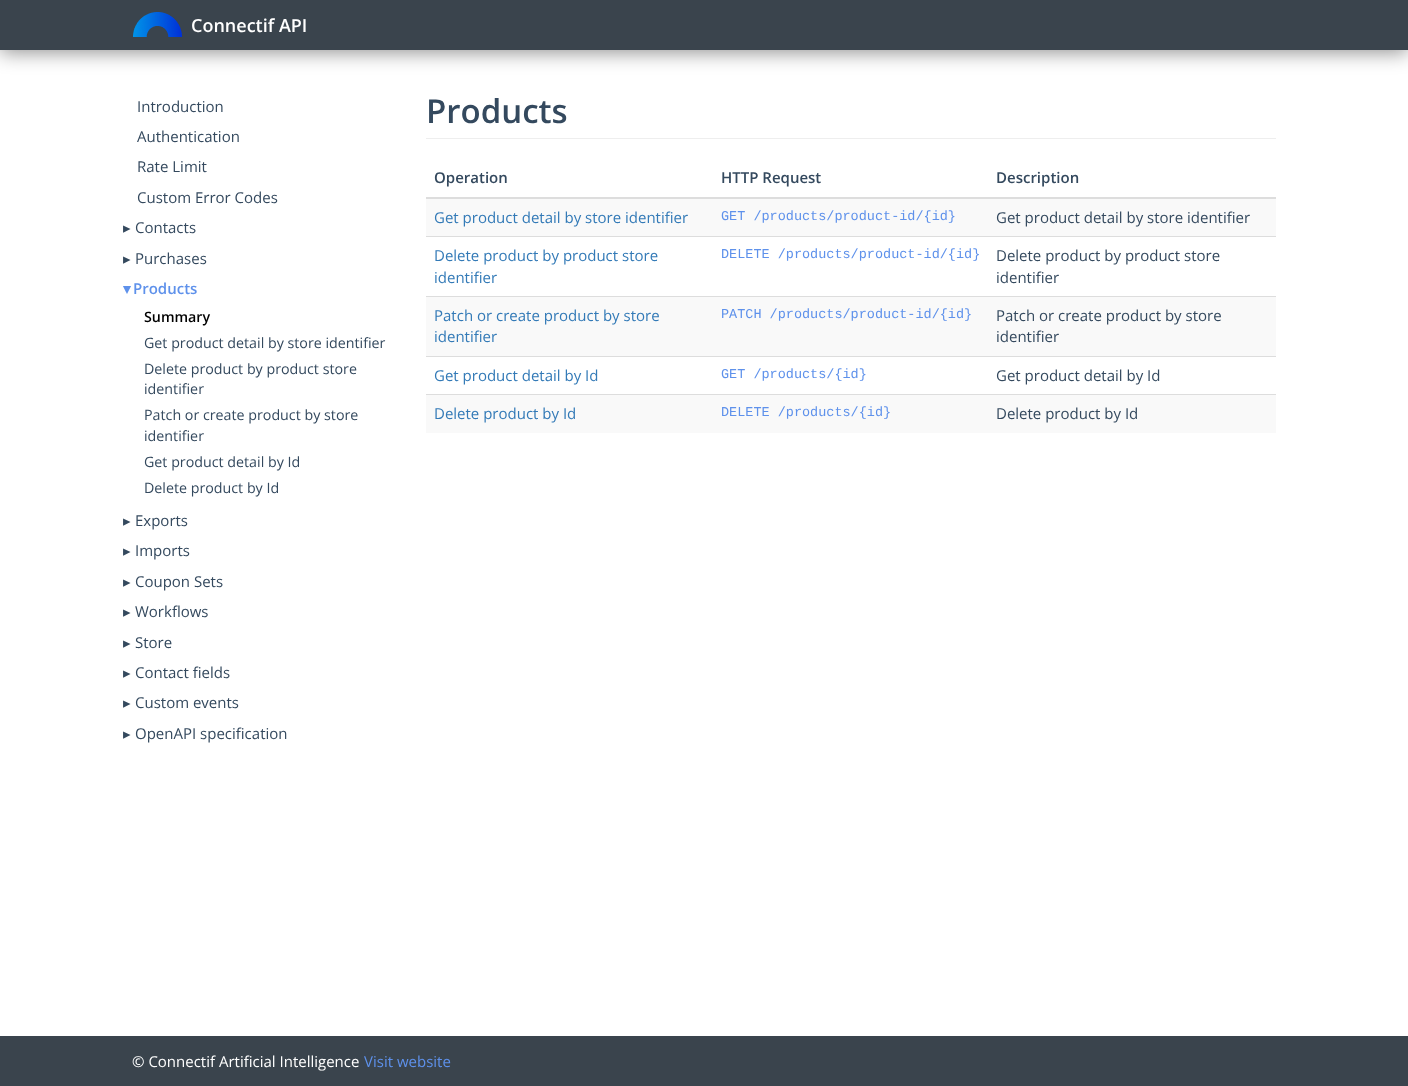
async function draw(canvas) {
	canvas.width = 1408;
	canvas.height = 1086;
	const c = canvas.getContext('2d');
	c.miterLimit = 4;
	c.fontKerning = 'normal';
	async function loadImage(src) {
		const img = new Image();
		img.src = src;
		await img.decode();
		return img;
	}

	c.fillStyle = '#fff';
	c.fillRect(0, 0, 1408, 1086);
	c.fillStyle = '#00000073';
	c.filter = 'blur(10px)';
	c.beginPath();
	c.rect(0, 2, 1408, 50);
	c.fill();
	c.filter = 'none';
	c.fillStyle = '#3a444d';
	c.fillRect(0, 0, 1408, 50);
	c.drawImage(await loadImage('img1.png'), 133, 12, 49, 25);
	c.font = '600 18px Open Sans';
	c.fillStyle = '#fff';
	c.fillText('Connectif API', 191, 32);
	c.font = '15px Open Sans';
	c.fillStyle = '#34495e';
	for (const [text, x, y] of [
		['Introduction', 137, 112],
		['Authentication', 137, 142],
		['Rate Limit', 137, 172],
		['Custom Error Codes', 137, 203],
	]) {
		c.fillText(text, x, y);
	}
	c.font = '15px DejaVu Sans';
	c.fillText('▸', 123, 233);
	c.font = '15px Open Sans';
	c.fillText('Contacts', 135, 233);
	c.font = '15px DejaVu Sans';
	c.fillText('▸', 123, 264);
	c.font = '15px Open Sans';
	c.fillText('Purchases', 135, 264);
	c.font = 'bold 15px DejaVu Sans';
	c.fillStyle = '#5e91eb';
	c.fillText('▾', 123, 294);
	c.font = '600 15px Open Sans';
	c.fillText('Products', 133, 294);
	c.font = '600 14.25px Open Sans';
	c.fillStyle = '#000';
	c.fillText('Summary', 144, 322);
	c.font = '14.25px Open Sans';
	c.fillStyle = '#34495e';
	for (const [text, x, y] of [
		['Get product detail by store identifier', 144, 348],
		['Delete product by product store', 144, 374],
		['identifier', 144, 394],
		['Patch or create product by store', 144, 420],
		['identifier', 144, 441],
		['Get product detail by Id', 144, 467],
		['Delete product by Id', 144, 493],
	]) {
		c.fillText(text, x, y);
	}
	c.font = '15px DejaVu Sans';
	c.fillText('▸', 123, 526);
	c.font = '15px Open Sans';
	c.fillText('Exports', 135, 526);
	c.font = '15px DejaVu Sans';
	c.fillText('▸', 123, 556);
	c.font = '15px Open Sans';
	c.fillText('Imports', 135, 556);
	c.font = '15px DejaVu Sans';
	c.fillText('▸', 123, 587);
	c.font = '15px Open Sans';
	c.fillText('Coupon Sets', 135, 587);
	c.font = '15px DejaVu Sans';
	c.fillText('▸', 123, 617);
	c.font = '15px Open Sans';
	c.fillText('Workflows', 135, 617);
	c.font = '15px DejaVu Sans';
	c.fillText('▸', 123, 648);
	c.font = '15px Open Sans';
	c.fillText('Store', 135, 648);
	c.font = '15px DejaVu Sans';
	c.fillText('▸', 123, 678);
	c.font = '15px Open Sans';
	c.fillText('Contact fields', 135, 678);
	c.font = '15px DejaVu Sans';
	c.fillText('▸', 123, 708);
	c.font = '15px Open Sans';
	c.fillText('Custom events', 135, 708);
	c.font = '15px DejaVu Sans';
	c.fillText('▸', 123, 739);
	c.font = '15px Open Sans';
	c.fillText('OpenAPI specification', 135, 739);
	c.fillStyle = '#eee';
	c.fillRect(426, 138, 850, 1);
	c.font = '600 33px Open Sans';
	c.fillStyle = '#34495e';
	c.fillText('Products', 426, 123);
	c.font = '600 15px Open Sans';
	c.fillText('Operation', 434, 183);
	c.fillText('HTTP Request', 721, 183);
	c.fillStyle = '#ddd';
	c.fillRect(426, 197, 850, 2);
	c.fillStyle = '#34495e';
	c.fillText('Description', 996, 183);
	c.fillStyle = '#f9f9f9';
	c.fillRect(426, 199, 850, 37);
	c.font = '15px Open Sans';
	c.fillStyle = '#337ab7';
	c.fillText('Get product detail by store identifier', 434, 223);
	c.font = '13.5px Liberation Mono';
	c.fillStyle = '#5e91eb';
	c.fillText('GET /products/product-id/{id}', 721, 220);
	c.font = '15px Open Sans';
	c.fillStyle = '#34495e';
	c.fillText('Get product detail by store identifier', 996, 223);
	c.fillStyle = '#337ab7';
	c.fillText('Delete product by product store', 434, 261);
	c.fillText('identifier', 434, 283);
	c.font = '13.5px Liberation Mono';
	c.fillStyle = '#5e91eb';
	c.fillText('DELETE /products/product-id/{id}', 721, 258);
	c.fillStyle = '#ddd';
	c.fillRect(426, 236, 850, 1);
	c.font = '15px Open Sans';
	c.fillStyle = '#34495e';
	c.fillText('Delete product by product store', 996, 261);
	c.fillText('identifier', 996, 283);
	c.fillStyle = '#f9f9f9';
	c.fillRect(426, 297, 850, 59);
	c.fillStyle = '#337ab7';
	c.fillText('Patch or create product by store', 434, 321);
	c.fillText('identifier', 434, 342);
	c.font = '13.5px Liberation Mono';
	c.fillStyle = '#5e91eb';
	c.fillText('PATCH /products/product-id/{id}', 721, 318);
	c.fillStyle = '#ddd';
	c.fillRect(426, 296, 850, 1);
	c.font = '15px Open Sans';
	c.fillStyle = '#34495e';
	c.fillText('Patch or create product by store', 996, 321);
	c.fillText('identifier', 996, 342);
	c.fillStyle = '#337ab7';
	c.fillText('Get product detail by Id', 434, 381);
	c.font = '13.5px Liberation Mono';
	c.fillStyle = '#5e91eb';
	c.fillText('GET /products/{id}', 721, 378);
	c.fillStyle = '#ddd';
	c.fillRect(426, 356, 850, 1);
	c.font = '15px Open Sans';
	c.fillStyle = '#34495e';
	c.fillText('Get product detail by Id', 996, 381);
	c.fillStyle = '#f9f9f9';
	c.fillRect(426, 395, 850, 38);
	c.fillStyle = '#337ab7';
	c.fillText('Delete product by Id', 434, 419);
	c.font = '13.5px Liberation Mono';
	c.fillStyle = '#5e91eb';
	c.fillText('DELETE /products/{id}', 721, 416);
	c.fillStyle = '#ddd';
	c.fillRect(426, 394, 850, 1);
	c.font = '15px Open Sans';
	c.fillStyle = '#34495e';
	c.fillText('Delete product by Id', 996, 419);
	c.fillStyle = '#3a444d';
	c.fillRect(0, 1036, 1408, 50);
	c.fillStyle = '#fff';
	c.fillText('© Connectif Artificial Intelligence', 132, 1067);
	c.fillStyle = '#5e91eb';
	c.fillText('Visit website', 364, 1067);
}

draw(document.querySelector('canvas'));
